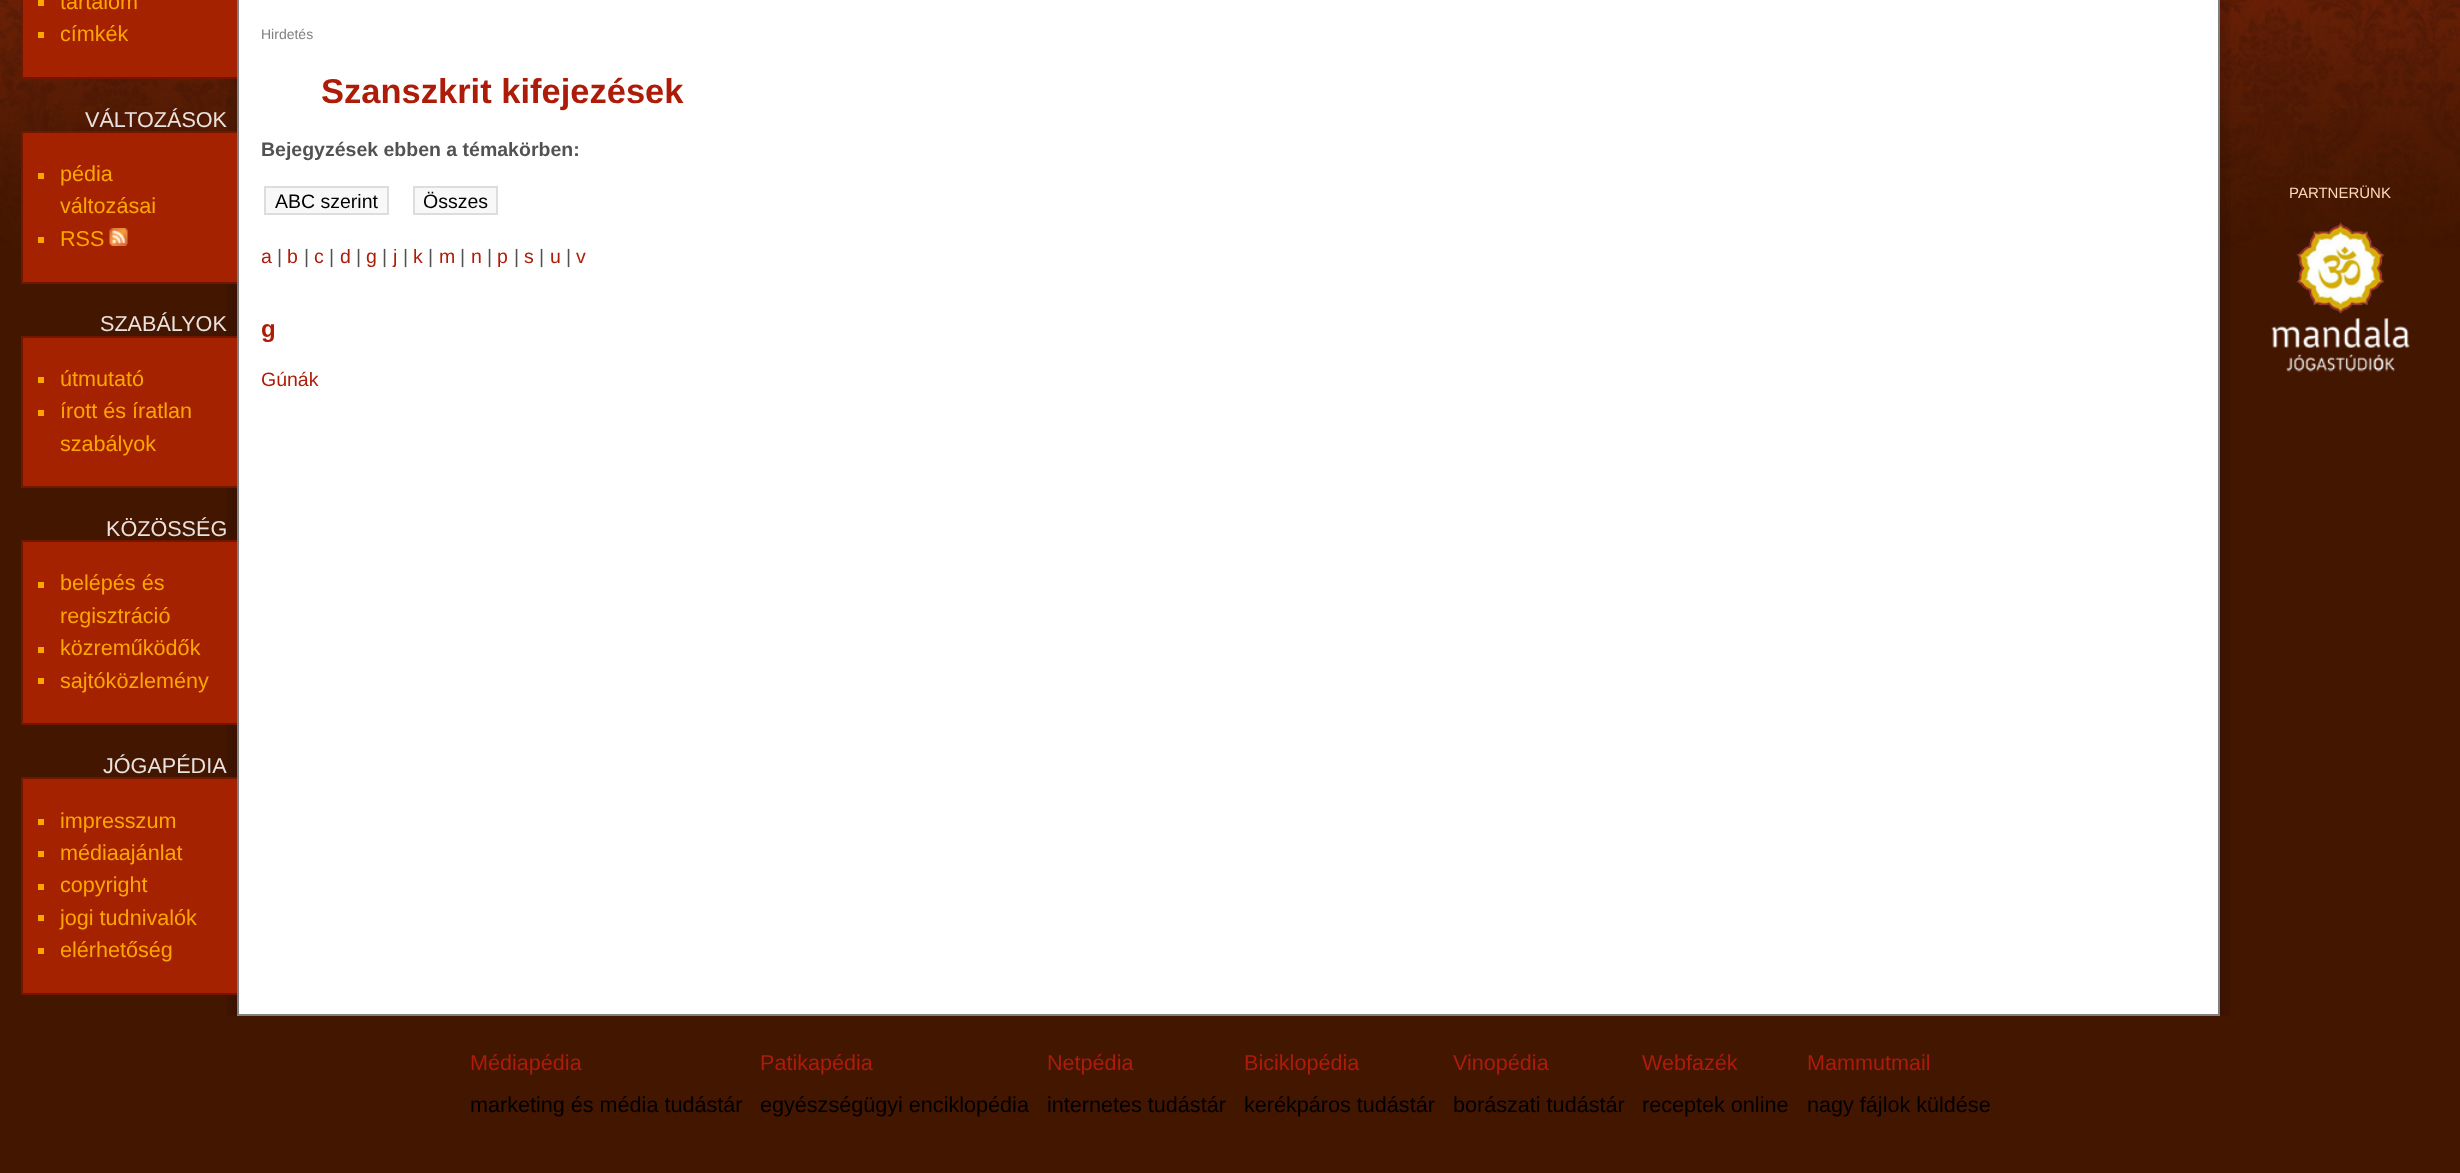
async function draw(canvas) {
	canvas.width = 2460;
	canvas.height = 1173;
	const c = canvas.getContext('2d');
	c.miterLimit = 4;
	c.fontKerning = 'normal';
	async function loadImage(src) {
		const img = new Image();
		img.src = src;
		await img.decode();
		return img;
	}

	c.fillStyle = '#431600';
	c.fillRect(0, 0, 2460, 1173);
	c.drawImage(await loadImage('img1.png'), 0, 0, 2460, 249);
	c.drawImage(await loadImage('img2.png'), 226, 79, 11, 937);
	for (const [x, y, w, h, color] of [
		[23, 0, 214, 77, '#a42200'],
		[21, 77, 216, 2, '#711700'],
		[21, 0, 2, 78, '#711700'],
		[38, 0, 6, 6, '#fda600'],
	]) {
		c.fillStyle = color;
		c.fillRect(x, y, w, h);
	}
	c.font = '21.6px Liberation Sans';
	c.fillText('tartalom', 60, 9);
	c.fillRect(38, 32, 6, 6);
	c.fillText('címkék', 60, 41);
	c.fillStyle = '#eae2de';
	c.fillText('VÁLTOZÁSOK', 85, 127);
	for (const [x, y, w, h, color] of [
		[23, 133, 214, 149, '#a42200'],
		[21, 131, 216, 2, '#711700'],
		[21, 282, 216, 2, '#711700'],
		[21, 131, 2, 153, '#711700'],
		[38, 173, 6, 6, '#fda600'],
	]) {
		c.fillStyle = color;
		c.fillRect(x, y, w, h);
	}
	c.fillText('pédia', 60, 181);
	c.fillText('változásai', 60, 213);
	c.fillRect(38, 237, 6, 6);
	c.fillText('RSS', 60, 246);
	c.drawImage(await loadImage('img3.png'), 109, 228, 19, 18);
	c.fillStyle = '#eae2de';
	c.fillText('SZABÁLYOK', 100, 331);
	for (const [x, y, w, h, color] of [
		[23, 338, 214, 148, '#a42200'],
		[21, 336, 216, 2, '#711700'],
		[21, 486, 216, 2, '#711700'],
		[21, 336, 2, 152, '#711700'],
		[38, 377, 6, 6, '#fda600'],
	]) {
		c.fillStyle = color;
		c.fillRect(x, y, w, h);
	}
	c.fillText('útmutató', 60, 386);
	c.fillRect(38, 410, 6, 6);
	c.fillText('írott és íratlan', 60, 418);
	c.fillText('szabályok', 60, 451);
	c.fillStyle = '#eae2de';
	c.fillText('KÖZÖSSÉG', 106, 536);
	for (const [x, y, w, h, color] of [
		[23, 542, 214, 181, '#a42200'],
		[21, 540, 216, 2, '#711700'],
		[21, 723, 216, 2, '#711700'],
		[21, 540, 2, 185, '#711700'],
		[38, 582, 6, 6, '#fda600'],
	]) {
		c.fillStyle = color;
		c.fillRect(x, y, w, h);
	}
	c.fillText('belépés és', 60, 590);
	c.fillText('regisztráció', 60, 623);
	c.fillRect(38, 647, 6, 6);
	c.fillText('közreműködők', 60, 655);
	c.fillRect(38, 678, 6, 6);
	c.fillText('sajtóközlemény', 60, 688);
	c.fillStyle = '#eae2de';
	c.fillText('JÓGAPÉDIA', 103, 773);
	for (const [x, y, w, h, color] of [
		[23, 779, 214, 214, '#a42200'],
		[21, 777, 216, 2, '#711700'],
		[21, 993, 216, 2, '#711700'],
		[21, 777, 2, 218, '#711700'],
		[38, 819, 6, 6, '#fda600'],
	]) {
		c.fillStyle = color;
		c.fillRect(x, y, w, h);
	}
	c.fillText('impresszum', 60, 828);
	c.fillRect(38, 851, 6, 6);
	c.fillText('médiaajánlat', 60, 860);
	c.fillRect(38, 884, 6, 6);
	c.fillText('copyright', 60, 892);
	c.fillRect(38, 915, 6, 6);
	c.fillText('jogi tudnivalók', 60, 925);
	c.fillRect(38, 948, 6, 6);
	c.fillText('elérhetőség', 60, 957);
	c.fillStyle = '#fff';
	c.beginPath();
	c.rect(238, -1, 1981, 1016);
	c.fill();
	c.strokeStyle = '#808080';
	c.lineWidth = 2;
	c.stroke();
	c.font = '14px Liberation Sans';
	c.fillStyle = '#808080';
	c.fillText('Hirdetés', 261, 39);
	c.font = 'bold 34.5px Liberation Sans';
	c.fillStyle = '#ad1c09';
	c.fillText('Szanszkrit kifejezések', 321, 103);
	c.font = 'bold 19.5px Liberation Sans';
	c.fillStyle = '#525252';
	c.fillText('Bejegyzések ebben a témakörben:', 261, 156);
	c.fillStyle = '#f8f8f8';
	c.beginPath();
	c.rect(265, 187, 123, 27);
	c.fill();
	c.strokeStyle = '#ddd';
	c.stroke();
	c.font = '19.5px Liberation Sans';
	c.fillStyle = '#000';
	c.fillText('ABC szerint', 275, 208);
	c.fillStyle = '#f8f8f8';
	c.beginPath();
	c.rect(414, 187, 83, 27);
	c.fill();
	c.stroke();
	c.fillStyle = '#000';
	c.fillText('Összes', 423, 208);
	c.fillStyle = '#ad1c09';
	c.fillText('a', 261, 263);
	c.fillStyle = '#525252';
	c.fillText('|', 277, 263);
	c.fillStyle = '#ad1c09';
	c.fillText('b', 287, 263);
	c.fillStyle = '#525252';
	c.fillText('|', 304, 263);
	c.fillStyle = '#ad1c09';
	c.fillText('c', 314, 263);
	c.fillStyle = '#525252';
	c.fillText('|', 329, 263);
	c.fillStyle = '#ad1c09';
	c.fillText('d', 340, 263);
	c.fillStyle = '#525252';
	c.fillText('|', 356, 263);
	c.fillStyle = '#ad1c09';
	c.fillText('g', 366, 263);
	c.fillStyle = '#525252';
	c.fillText('|', 382, 263);
	c.fillStyle = '#ad1c09';
	c.fillText('j', 393, 263);
	c.fillStyle = '#525252';
	c.fillText('|', 403, 263);
	c.fillStyle = '#ad1c09';
	c.fillText('k', 413, 263);
	c.fillStyle = '#525252';
	c.fillText('|', 428, 263);
	c.fillStyle = '#ad1c09';
	c.fillText('m', 439, 263);
	c.fillStyle = '#525252';
	c.fillText('|', 460, 263);
	c.fillStyle = '#ad1c09';
	c.fillText('n', 471, 263);
	c.fillStyle = '#525252';
	c.fillText('|', 487, 263);
	c.fillStyle = '#ad1c09';
	c.fillText('p', 497, 263);
	c.fillStyle = '#525252';
	c.fillText('|', 514, 263);
	c.fillStyle = '#ad1c09';
	c.fillText('s', 524, 263);
	c.fillStyle = '#525252';
	c.fillText('|', 539, 263);
	c.fillStyle = '#ad1c09';
	c.fillText('u', 550, 263);
	c.fillStyle = '#525252';
	c.fillText('|', 566, 263);
	c.fillStyle = '#ad1c09';
	c.fillText('v', 576, 263);
	c.font = 'bold 24px Liberation Sans';
	c.fillText('g', 261, 337);
	c.font = '19.5px Liberation Sans';
	c.fillText('Gúnák', 261, 386);
	c.drawImage(await loadImage('img4.png'), 2220, 0, 11, 1016);
	c.font = '15px Liberation Sans';
	c.fillStyle = '#ffdab9';
	c.fillText('PARTNERÜNK', 2289, 198);
	c.drawImage(await loadImage('img5.png'), 2271, 222, 139, 150);
	c.font = '21.6px Liberation Sans';
	c.fillStyle = '#ad1c09';
	for (const [text, x, y] of [
		['Médiapédia', 470, 1070],
		['Patikapédia', 760, 1070],
		['Netpédia', 1047, 1070],
		['Biciklopédia', 1244, 1070],
		['Vinopédia', 1453, 1070],
		['Webfazék', 1642, 1070],
		['Mammutmail', 1807, 1070],
	]) {
		c.fillText(text, x, y);
	}
	c.fillStyle = '#000';
	for (const [text, x, y] of [
		['marketing és média tudástár', 470, 1112],
		['egyészségügyi enciklopédia', 760, 1112],
		['internetes tudástár', 1047, 1112],
		['kerékpáros tudástár', 1244, 1112],
		['borászati tudástár', 1453, 1112],
		['receptek online', 1642, 1112],
		['nagy fájlok küldése', 1807, 1112],
	]) {
		c.fillText(text, x, y);
	}
}

draw(document.querySelector('canvas'));
